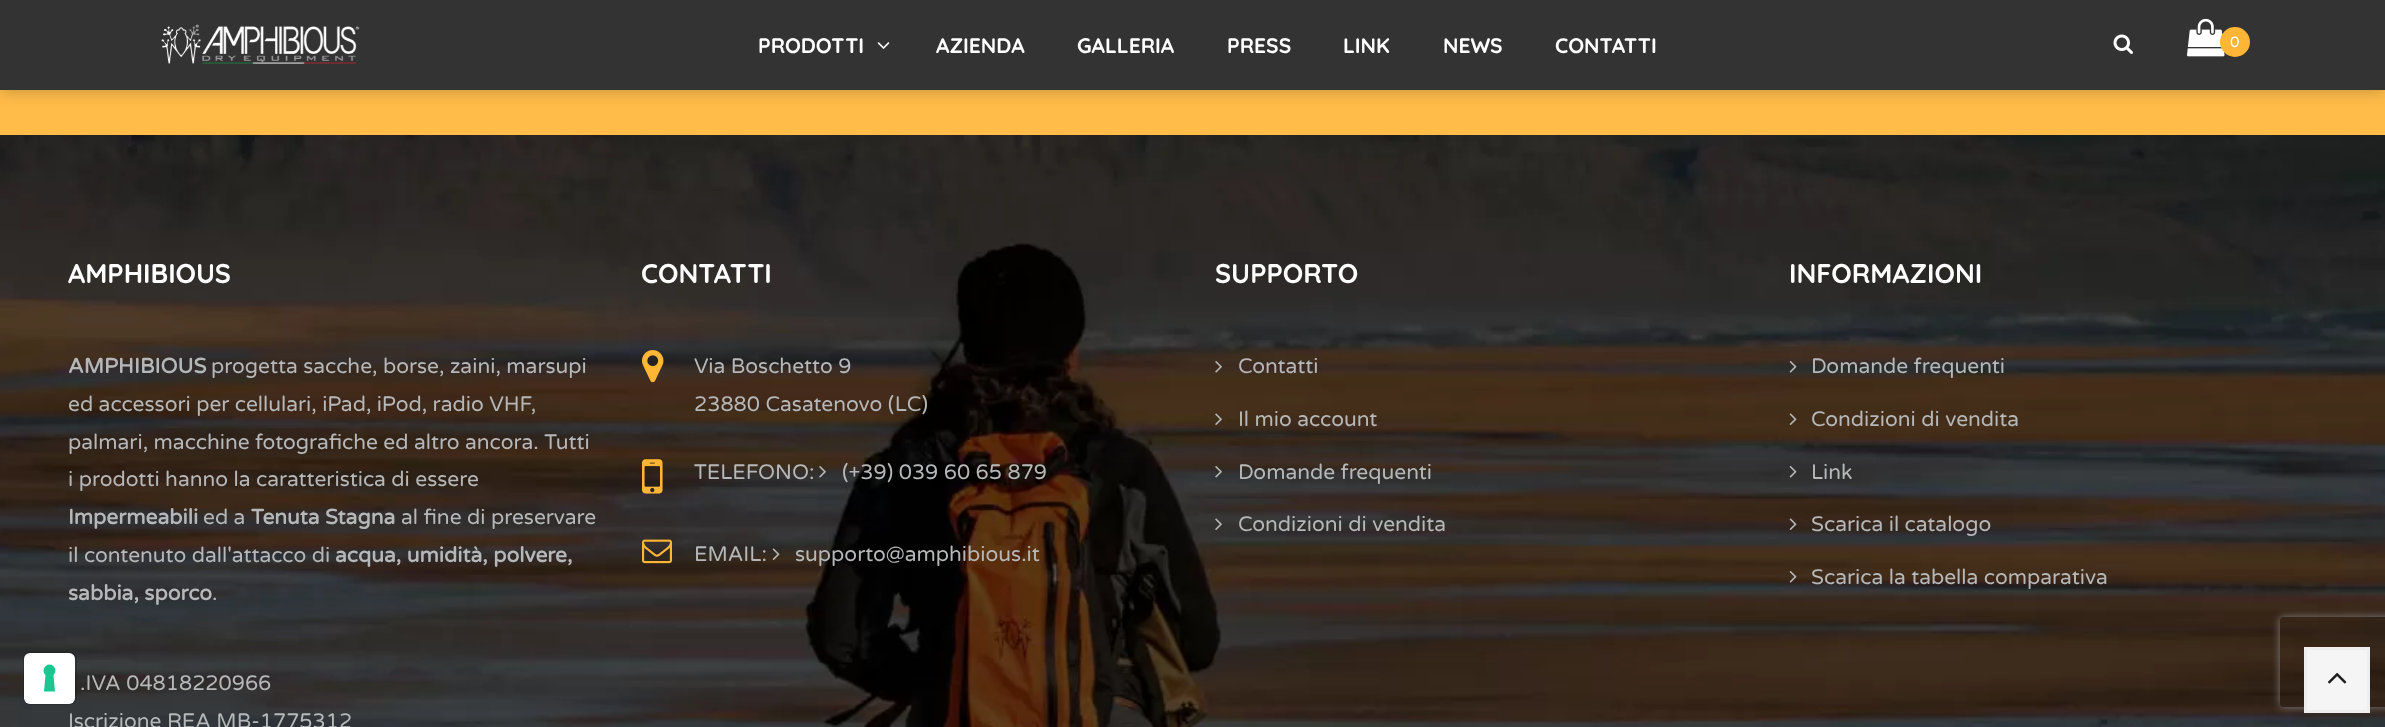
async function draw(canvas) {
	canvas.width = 2385;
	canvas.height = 727;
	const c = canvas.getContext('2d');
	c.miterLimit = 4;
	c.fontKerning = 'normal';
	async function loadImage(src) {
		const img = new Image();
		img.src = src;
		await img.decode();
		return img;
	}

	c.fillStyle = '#fff';
	c.fillRect(0, 0, 2385, 727);
	c.fillStyle = '#ffbc49';
	c.fillRect(0, 90, 2385, 45);
	c.fillStyle = '#00000033';
	c.filter = 'blur(7.5px)';
	c.beginPath();
	c.rect(0, 2, 2385, 90);
	c.fill();
	c.filter = 'none';
	c.fillStyle = '#333';
	c.fillRect(0, 0, 2385, 90);
	c.drawImage(await loadImage('img1.png'), 161, 24, 199, 40);
	c.font = 'bold 21px Quicksand';
	c.fillStyle = '#fff';
	c.fillText('PRODOTTI', 758, 53);
	c.drawImage(await loadImage('img2.png'), 877, 42, 13, 7);
	for (const [text, x, y] of [
		['AZIENDA', 936, 53],
		['GALLERIA', 1077, 53],
		['PRESS', 1227, 53],
		['LINK', 1343, 53],
		['NEWS', 1443, 53],
		['CONTATTI', 1555, 53],
	]) {
		c.fillText(text, x, y);
	}
	c.drawImage(await loadImage('img3.png'), 2113, 34, 20, 20);
	c.drawImage(await loadImage('img4.png'), 2187, 18, 38, 39);
	c.fillStyle = '#ffb535';
	c.beginPath();
	c.arc(2235, 42, 15, 0, 2 * Math.PI);
	c.fill();
	c.font = '15px Varela Round';
	c.fillStyle = '#fff';
	c.fillText('0', 2230, 47);
	c.drawImage(await loadImage('img5.png'), 0, 135, 2385, 592);
	c.font = 'bold 27px Quicksand';
	c.fillText('AMPHIBIOUS', 68, 283);
	c.font = 'bold 21px Varela Round';
	c.fillStyle = '#b5b7b8';
	c.fillText('AMPHIBIOUS', 68, 373);
	c.font = '21px Varela Round';
	for (const [text, x, y] of [
		['progetta sacche, borse, zaini, marsupi', 211, 373],
		['ed accessori per cellulari, iPad, iPod, radio VHF,', 68, 411],
		['palmari, macchine fotografiche ed altro ancora. Tutti', 68, 449],
		['i prodotti hanno la caratteristica di essere', 68, 486],
	]) {
		c.fillText(text, x, y);
	}
	c.font = 'bold 21px Varela Round';
	c.fillText('Impermeabili', 68, 524);
	c.font = '21px Varela Round';
	c.fillText('ed a', 203, 524);
	c.font = 'bold 21px Varela Round';
	c.fillText('Tenuta Stagna', 251, 524);
	c.font = '21px Varela Round';
	c.fillText('al fine di preservare', 401, 524);
	c.fillText('il contenuto dall\'attacco di', 68, 562);
	c.font = 'bold 21px Varela Round';
	c.fillText('acqua, umidità, polvere,', 335, 562);
	c.fillText('sabbia, sporco', 68, 600);
	c.font = '21px Varela Round';
	for (const [text, x, y] of [
		['.', 212, 600],
		['.IVA 04818220966', 80, 690],
		['Iscrizione REA MB-1775312', 68, 728],
	]) {
		c.fillText(text, x, y);
	}
	c.font = 'bold 27px Quicksand';
	c.fillStyle = '#fff';
	c.fillText('CONTATTI', 641, 283);
	c.drawImage(await loadImage('img6.png'), 642, 350, 22, 33);
	c.font = '21px Varela Round';
	c.fillStyle = '#b5b7b8';
	c.fillText('Via Boschetto 9', 694, 373);
	c.fillText('23880 Casatenovo (LC)', 694, 411);
	c.drawImage(await loadImage('img7.png'), 642, 459, 21, 35);
	c.fillText('TELEFONO:', 694, 479);
	c.drawImage(await loadImage('img8.png'), 819, 466, 7, 12);
	c.fillText('(+39) 039 60 65 879', 842, 479);
	c.drawImage(await loadImage('img9.png'), 642, 539, 30, 25);
	c.fillText('EMAIL:', 694, 561);
	c.drawImage(await loadImage('img10.png'), 772, 548, 8, 12);
	c.fillText('supporto@amphibious.it', 795, 561);
	c.font = 'bold 27px Quicksand';
	c.fillStyle = '#fff';
	c.fillText('SUPPORTO', 1215, 283);
	c.drawImage(await loadImage('img11.png'), 1215, 361, 7, 12);
	c.font = '21px Varela Round';
	c.fillStyle = '#b5b7b8';
	c.fillText('Contatti', 1238, 373);
	c.drawImage(await loadImage('img12.png'), 1215, 413, 7, 12);
	c.fillText('Il mio account', 1238, 426);
	c.drawImage(await loadImage('img13.png'), 1215, 466, 7, 12);
	c.fillText('Domande frequenti', 1238, 479);
	c.drawImage(await loadImage('img14.png'), 1215, 518, 7, 12);
	c.fillText('Condizioni di vendita', 1238, 531);
	c.font = 'bold 27px Quicksand';
	c.fillStyle = '#fff';
	c.fillText('INFORMAZIONI', 1789, 283);
	c.drawImage(await loadImage('img15.png'), 1789, 361, 8, 12);
	c.font = '21px Varela Round';
	c.fillStyle = '#b5b7b8';
	c.fillText('Domande frequenti', 1811, 373);
	c.drawImage(await loadImage('img16.png'), 1789, 413, 8, 12);
	c.fillText('Condizioni di vendita', 1811, 426);
	c.drawImage(await loadImage('img17.png'), 1789, 466, 8, 12);
	c.fillText('Link', 1811, 479);
	c.drawImage(await loadImage('img18.png'), 1789, 518, 8, 12);
	c.fillText('Scarica il catalogo', 1811, 531);
	c.drawImage(await loadImage('img19.png'), 1789, 571, 8, 12);
	c.fillText('Scarica la tabella comparativa', 1811, 584);
	c.save();
	c.beginPath();
	c.moveTo(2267, 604);
	c.lineTo(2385, 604);
	c.lineTo(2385, 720);
	c.lineTo(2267, 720);
	c.closePath();
	c.moveTo(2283, 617);
	c.lineTo(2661, 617);
	c.bezierCurveTo(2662.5, 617, 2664, 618.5, 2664, 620);
	c.lineTo(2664, 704);
	c.bezierCurveTo(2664, 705.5, 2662.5, 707, 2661, 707);
	c.lineTo(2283, 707);
	c.bezierCurveTo(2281.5, 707, 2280, 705.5, 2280, 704);
	c.lineTo(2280, 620);
	c.bezierCurveTo(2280, 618.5, 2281.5, 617, 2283, 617);
	c.closePath();
	c.clip('evenodd');
	c.fillStyle = '#808080';
	c.filter = 'blur(4px)';
	c.beginPath();
	c.roundRect(2280, 617, 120, 90, 3);
	c.fill();
	c.filter = 'none';
	c.restore();
	c.beginPath();
	c.roundRect(24, 652, 52, 52, 7);
	c.strokeStyle = '#00000026';
	c.lineWidth = 2;
	c.stroke();
	c.fillStyle = '#fff';
	c.beginPath();
	c.roundRect(24, 653, 51, 51, 6);
	c.fill();
	c.fillStyle = '#1cc691';
	c.beginPath();
	c.moveTo(49.5, 664.5);
	c.bezierCurveTo(55, 664.5, 57.5, 671.5, 53.5, 675);
	c.lineTo(55, 691.5);
	c.lineTo(44, 691.5);
	c.lineTo(45.5, 675);
	c.bezierCurveTo(41.5, 671.5, 44, 664.5, 49.5, 664.5);
	c.closePath();
	c.fill('evenodd');
	c.fillStyle = '#f5f5f5';
	c.beginPath();
	c.rect(2305.5, 648.5, 63, 63);
	c.fill();
	c.strokeStyle = '#eee';
	c.lineWidth = 3;
	c.stroke();
	c.drawImage(await loadImage('img20.png'), 2328, 672, 19, 12);
}

draw(document.querySelector('canvas'));
